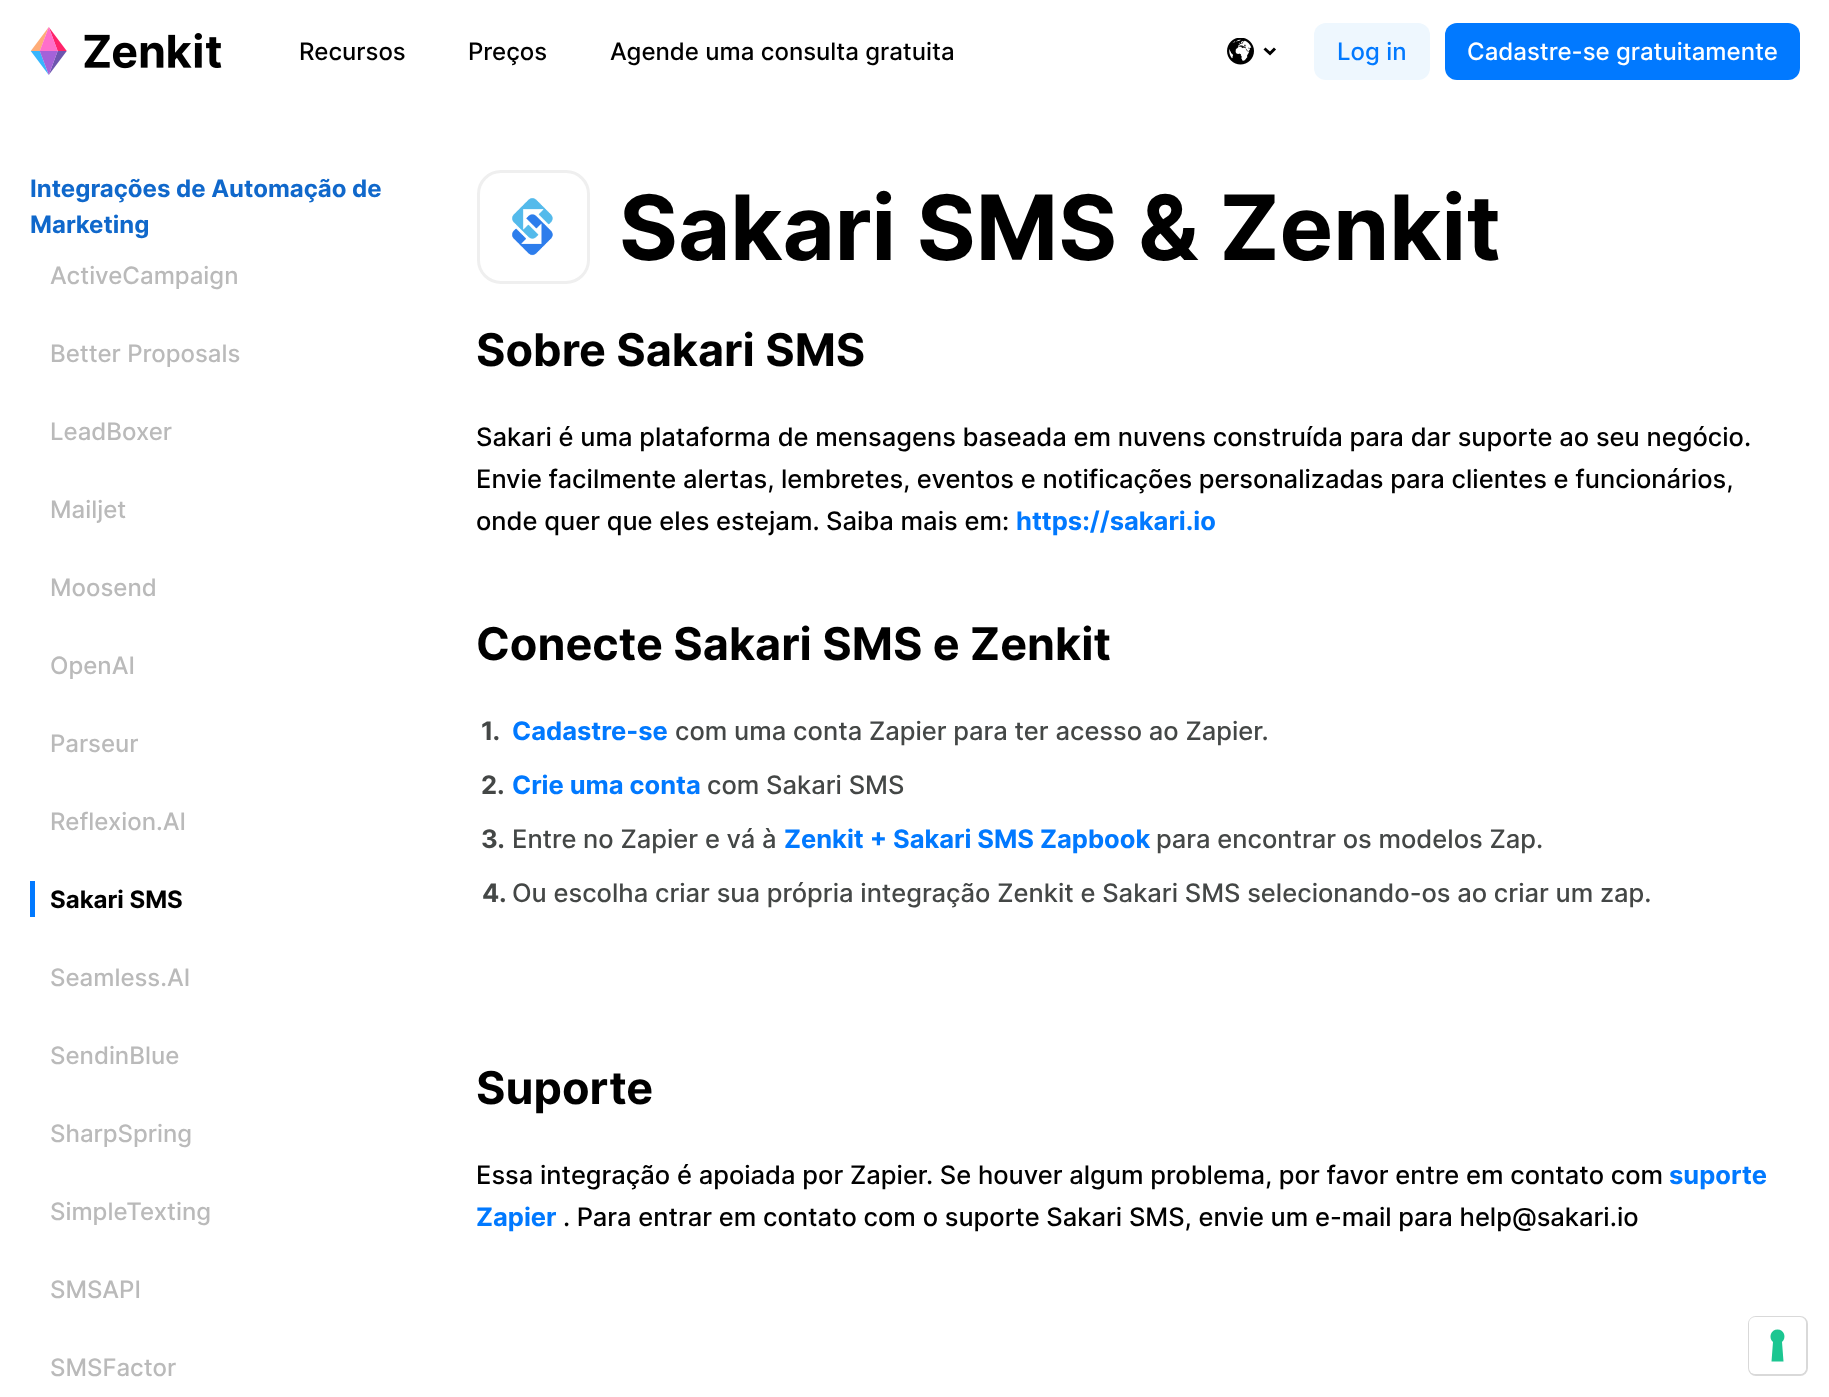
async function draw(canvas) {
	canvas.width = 1829;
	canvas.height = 1397;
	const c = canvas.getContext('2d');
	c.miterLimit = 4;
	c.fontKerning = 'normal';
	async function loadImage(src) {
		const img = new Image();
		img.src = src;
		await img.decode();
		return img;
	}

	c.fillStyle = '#fff';
	c.fillRect(0, 0, 1829, 1397);
	c.drawImage(await loadImage('img1.png'), 30, 27, 192, 48);
	c.font = '500 24px Inter';
	c.fillStyle = '#000';
	for (const [text, x, y] of [
		['Recursos', 299, 60],
		['Preços', 468, 60],
		['Agende uma consulta gratuita', 610, 60],
	]) {
		c.fillText(text, x, y);
	}
	c.drawImage(await loadImage('img2.png'), 1227, 38, 27, 27);
	c.beginPath();
	c.moveTo(1264.5, 48.5);
	c.lineTo(1270, 53.5);
	c.lineTo(1275, 48.5);
	c.strokeStyle = '#000';
	c.lineWidth = 3;
	c.stroke();
	c.fillStyle = '#eef7fe';
	c.beginPath();
	c.roundRect(1314, 23, 116, 57, 12);
	c.fill();
	c.fillStyle = '#0179ff';
	c.fillText('Log in', 1337, 60);
	c.beginPath();
	c.roundRect(1445, 23, 355, 57, 12);
	c.fill();
	c.fillStyle = '#fff';
	c.fillText('Cadastre-se gratuitamente', 1467, 60);
	c.font = 'bold 24px Inter';
	c.fillStyle = '#1068cb';
	c.fillText('Integrações de Automação de', 30, 197);
	c.fillText('Marketing', 30, 233);
	c.font = '500 24px Inter';
	c.fillStyle = '#bababa';
	for (const [text, x, y] of [
		['ActiveCampaign', 50, 284],
		['Better Proposals', 50, 362],
		['LeadBoxer', 50, 440],
		['Mailjet', 50, 518],
		['Moosend', 50, 596],
		['OpenAI', 50, 674],
		['Parseur', 50, 752],
		['Reflexion.AI', 50, 830],
	]) {
		c.fillText(text, x, y);
	}
	c.fillStyle = '#0179ff';
	c.fillRect(30, 881, 5, 36);
	c.font = 'bold 24px Inter';
	c.fillStyle = '#000';
	c.fillText('Sakari SMS', 50, 908);
	c.font = '500 24px Inter';
	c.fillStyle = '#bababa';
	for (const [text, x, y] of [
		['Seamless.AI', 50, 986],
		['SendinBlue', 50, 1064],
		['SharpSpring', 50, 1142],
		['SimpleTexting', 50, 1220],
		['SMSAPI', 50, 1298],
		['SMSFactor', 50, 1376],
	]) {
		c.fillText(text, x, y);
	}
	c.beginPath();
	c.roundRect(478.5, 171.5, 110, 111, 22.5);
	c.strokeStyle = '#efefef';
	c.stroke();
	c.drawImage(await loadImage('img3.png'), 512, 198, 41, 58);
	c.font = 'bold 90px Inter';
	c.fillStyle = '#000';
	c.fillText('Sakari SMS & Zenkit', 619, 260);
	c.font = 'bold 45px Inter';
	c.fillText('Sobre Sakari SMS', 476, 366);
	c.font = '500 25.5px Inter';
	for (const [text, x, y] of [
		['Sakari é uma plataforma de mensagens baseada em nuvens construída para dar suporte ao seu negócio.', 476, 446],
		['Envie facilmente alertas, lembretes, eventos e notificações personalizadas para clientes e funcionários,', 476, 488],
		['onde quer que eles estejam. Saiba mais em:', 476, 530],
	]) {
		c.fillText(text, x, y);
	}
	c.font = 'bold 25.5px Inter';
	c.fillStyle = '#0179ff';
	c.fillText('https://sakari.io', 1016, 530);
	c.font = 'bold 45px Inter';
	c.fillStyle = '#000';
	c.fillText('Conecte Sakari SMS e Zenkit', 476, 660);
	c.font = 'bold 25.5px Inter';
	c.fillStyle = '#444746';
	c.fillText('1.', 481, 740);
	c.fillStyle = '#0179ff';
	c.fillText('Cadastre-se', 512, 740);
	c.font = '500 25.5px Inter';
	c.fillStyle = '#444746';
	c.fillText('com uma conta Zapier para ter acesso ao Zapier.', 675, 740);
	c.font = 'bold 25.5px Inter';
	c.fillText('2.', 481, 794);
	c.fillStyle = '#0179ff';
	c.fillText('Crie uma conta', 512, 794);
	c.font = '500 25.5px Inter';
	c.fillStyle = '#444746';
	c.fillText('com Sakari SMS', 707, 794);
	c.font = 'bold 25.5px Inter';
	c.fillText('3.', 481, 848);
	c.font = '500 25.5px Inter';
	c.fillText('Entre no Zapier e vá à', 512, 848);
	c.font = 'bold 25.5px Inter';
	c.fillStyle = '#0179ff';
	c.fillText('Zenkit + Sakari SMS Zapbook', 784, 848);
	c.font = '500 25.5px Inter';
	c.fillStyle = '#444746';
	c.fillText('para encontrar os modelos Zap.', 1156, 848);
	c.font = 'bold 25.5px Inter';
	c.fillText('4.', 482, 902);
	c.font = '500 25.5px Inter';
	c.fillText('Ou escolha criar sua própria integração Zenkit e Sakari SMS selecionando-os ao criar um zap.', 512, 902);
	c.font = 'bold 45px Inter';
	c.fillStyle = '#000';
	c.fillText('Suporte', 476, 1104);
	c.font = '500 25.5px Inter';
	c.fillText('Essa integração é apoiada por Zapier. Se houver algum problema, por favor entre em contato com', 476, 1184);
	c.font = 'bold 25.5px Inter';
	c.fillStyle = '#0179ff';
	c.fillText('suporte', 1669, 1184);
	c.fillText('Zapier', 476, 1226);
	c.font = '500 25.5px Inter';
	c.fillStyle = '#000';
	c.fillText('. Para entrar em contato com o suporte Sakari SMS, envie um e-mail para help@sakari.io', 563, 1226);
	c.beginPath();
	c.roundRect(1749, 1317, 58, 58, 7);
	c.strokeStyle = '#d9d9d9';
	c.lineWidth = 2;
	c.stroke();
	c.fillStyle = '#fff';
	c.beginPath();
	c.roundRect(1749, 1317, 57, 57, 6);
	c.fill();
	c.fillStyle = '#1cc691';
	c.beginPath();
	c.moveTo(1777.5, 1329.5);
	c.bezierCurveTo(1784, 1329.5, 1787, 1337.5, 1782, 1342);
	c.lineTo(1783.5, 1361.5);
	c.lineTo(1771.5, 1361.5);
	c.lineTo(1773, 1342);
	c.bezierCurveTo(1768, 1337.5, 1771, 1329.5, 1777.5, 1329.5);
	c.closePath();
	c.fill('evenodd');
}

draw(document.querySelector('canvas'));
